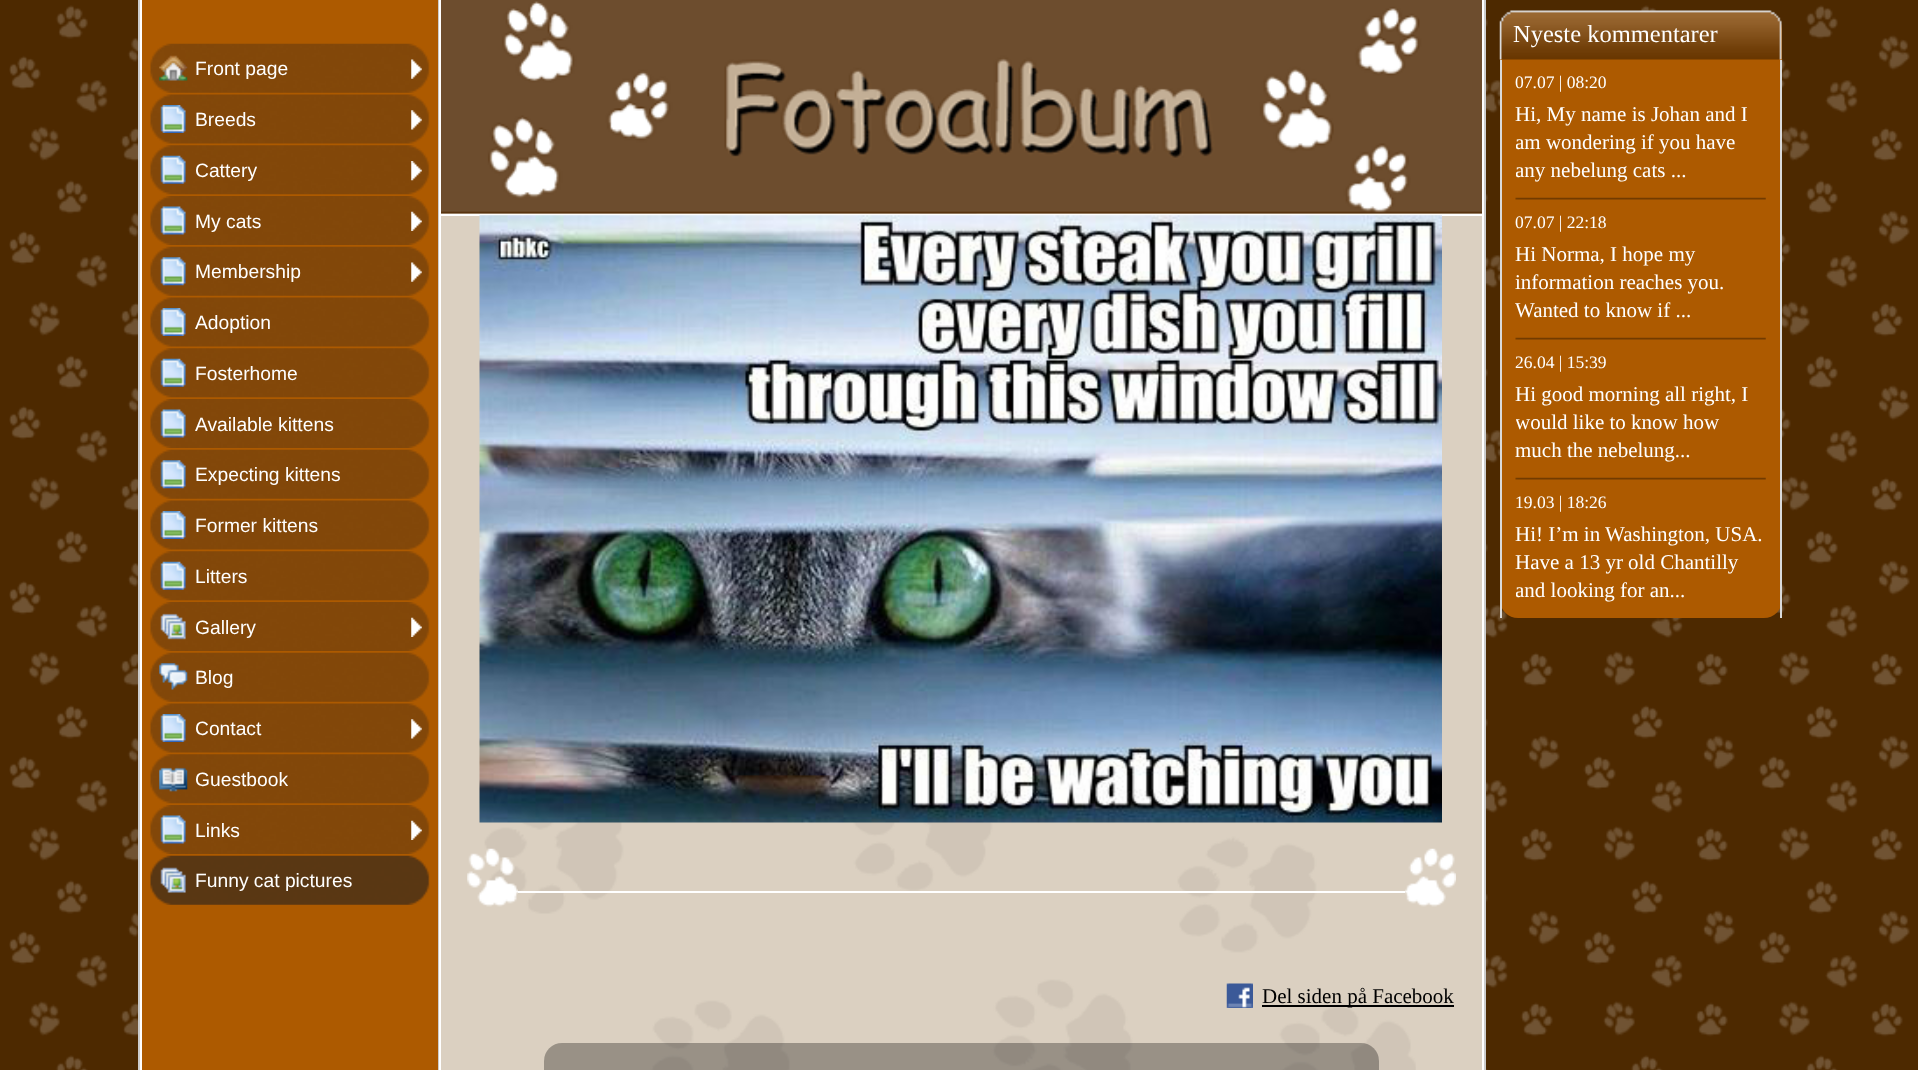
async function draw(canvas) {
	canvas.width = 1918;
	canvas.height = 1070;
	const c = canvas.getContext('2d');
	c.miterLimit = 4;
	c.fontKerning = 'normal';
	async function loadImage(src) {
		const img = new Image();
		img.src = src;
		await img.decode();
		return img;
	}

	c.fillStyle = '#4d2900';
	c.fillRect(0, 0, 1918, 1070);
	c.drawImage(await loadImage('img1.png'), 9, 5, 1901, 1065);
	for (const [x, y, w, h, color] of [
		[140, 0, 2, 1070, '#fff'],
		[138, 0, 2, 1070, '#ccc'],
		[142, 0, 296, 1070, '#ad5a00'],
	]) {
		c.fillStyle = color;
		c.fillRect(x, y, w, h);
	}
	c.drawImage(await loadImage('img2.png'), 150, 43, 280, 50);
	c.drawImage(await loadImage('img3.png'), 159, 55, 29, 26);
	c.drawImage(await loadImage('img4.png'), 411, 59, 11, 20);
	c.font = '19.25px Liberation Sans';
	c.fillStyle = '#fff';
	c.fillText('Front page', 195, 75);
	c.drawImage(await loadImage('img5.png'), 150, 94, 280, 50);
	c.drawImage(await loadImage('img6.png'), 160, 105, 26, 28);
	c.drawImage(await loadImage('img7.png'), 411, 110, 11, 20);
	c.fillText('Breeds', 195, 126);
	c.drawImage(await loadImage('img8.png'), 150, 145, 280, 50);
	c.drawImage(await loadImage('img9.png'), 160, 155, 26, 29);
	c.drawImage(await loadImage('img10.png'), 411, 161, 11, 20);
	c.fillText('Cattery', 195, 177);
	c.drawImage(await loadImage('img11.png'), 150, 196, 280, 49);
	c.drawImage(await loadImage('img12.png'), 160, 206, 26, 29);
	c.drawImage(await loadImage('img13.png'), 411, 211, 11, 20);
	c.fillText('My cats', 195, 228);
	c.drawImage(await loadImage('img14.png'), 150, 246, 280, 50);
	c.drawImage(await loadImage('img15.png'), 160, 257, 26, 29);
	c.drawImage(await loadImage('img4.png'), 411, 262, 11, 20);
	c.fillText('Membership', 195, 278);
	c.drawImage(await loadImage('img16.png'), 150, 297, 280, 50);
	c.drawImage(await loadImage('img17.png'), 160, 308, 26, 28);
	c.fillText('Adoption', 195, 329);
	c.drawImage(await loadImage('img8.png'), 150, 348, 280, 50);
	c.drawImage(await loadImage('img9.png'), 160, 358, 26, 29);
	c.fillText('Fosterhome', 195, 380);
	c.drawImage(await loadImage('img18.png'), 150, 399, 280, 49);
	c.drawImage(await loadImage('img19.png'), 160, 409, 26, 29);
	c.fillText('Available kittens', 195, 431);
	c.drawImage(await loadImage('img14.png'), 150, 449, 280, 50);
	c.drawImage(await loadImage('img15.png'), 160, 460, 26, 29);
	c.fillText('Expecting kittens', 195, 481);
	c.drawImage(await loadImage('img16.png'), 150, 500, 280, 50);
	c.drawImage(await loadImage('img17.png'), 160, 511, 26, 28);
	c.fillText('Former kittens', 195, 532);
	c.drawImage(await loadImage('img8.png'), 150, 551, 280, 50);
	c.drawImage(await loadImage('img9.png'), 160, 561, 26, 29);
	c.fillText('Litters', 195, 583);
	c.drawImage(await loadImage('img18.png'), 150, 602, 280, 49);
	c.drawImage(await loadImage('img20.png'), 160, 613, 26, 27);
	c.drawImage(await loadImage('img21.png'), 411, 617, 11, 20);
	c.fillText('Gallery', 195, 634);
	c.drawImage(await loadImage('img14.png'), 150, 652, 280, 50);
	c.drawImage(await loadImage('img22.png'), 159, 663, 29, 27);
	c.fillText('Blog', 195, 684);
	c.drawImage(await loadImage('img16.png'), 150, 703, 280, 50);
	c.drawImage(await loadImage('img17.png'), 160, 714, 26, 28);
	c.drawImage(await loadImage('img23.png'), 411, 719, 11, 20);
	c.fillText('Contact', 195, 735);
	c.drawImage(await loadImage('img8.png'), 150, 754, 280, 50);
	c.drawImage(await loadImage('img24.png'), 159, 767, 29, 25);
	c.fillText('Guestbook', 195, 786);
	c.drawImage(await loadImage('img18.png'), 150, 805, 280, 49);
	c.drawImage(await loadImage('img19.png'), 160, 815, 26, 29);
	c.drawImage(await loadImage('img21.png'), 411, 820, 11, 20);
	c.fillText('Links', 195, 837);
	c.drawImage(await loadImage('img25.png'), 150, 855, 280, 50);
	c.drawImage(await loadImage('img26.png'), 160, 867, 26, 26);
	c.fillText('Funny cat pictures', 195, 887);
	for (const [x, y, w, h, color] of [
		[438, 0, 1, 1070, '#ccc'],
		[439, 0, 2, 1070, '#fff'],
		[1482, 0, 2, 1070, '#fff'],
		[1484, 0, 2, 1070, '#ccc'],
		[441, 213, 1041, 857, '#dbd0c1'],
	]) {
		c.fillStyle = color;
		c.fillRect(x, y, w, h);
	}
	c.drawImage(await loadImage('img27.png'), 484, 213, 932, 857);
	c.drawImage(await loadImage('img28.png'), 441, 0, 1041, 214);
	c.fillStyle = '#fff';
	c.fillRect(441, 214, 1041, 2);
	c.drawImage(await loadImage('img29.png'), 479, 215, 963, 608);
	c.drawImage(await loadImage('img30.png'), 467, 848, 51, 59);
	c.fillRect(518, 891, 887, 2);
	c.drawImage(await loadImage('img31.png'), 1405, 848, 51, 59);
	c.drawImage(await loadImage('img32.png'), 1226, 983, 27, 25);
	c.fillStyle = '#000';
	c.fillRect(1262, 1005, 192, 2);
	c.font = '21px Liberation Serif';
	c.fillText('Del siden på Facebook', 1262, 1003);
	c.fillStyle = '#0000004d';
	c.beginPath();
	c.roundRect(544, 1043, 835, 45, 18);
	c.fill();
	c.fillStyle = '#ad5a00';
	c.beginPath();
	c.roundRect(1500, 11, 282, 607, 18);
	c.fill();
	c.drawImage(await loadImage('img33.png'), 1499, 10, 283, 50);
	c.font = '24.5px Liberation Serif';
	c.fillStyle = '#fff';
	c.fillText('Nyeste kommentarer', 1513, 42);
	c.fillStyle = '#dadada';
	c.fillRect(1780, 60, 2, 558);
	c.fillRect(1500, 60, 2, 558);
	c.font = '17.5px Liberation Serif';
	c.fillStyle = '#fff';
	c.fillText('07.07 | 08:20', 1515, 88);
	c.font = '21px Liberation Serif';
	c.fillText('Hi, My name is Johan and I', 1515, 121);
	c.save();
	c.beginPath();
	c.rect(1516, 100, 250, 84);
	c.clip();
	c.fillText('am wondering if you have', 1515, 149);
	c.fillText('any nebelung cats ...', 1515, 177);
	c.restore();
	c.drawImage(await loadImage('img34.png'), 1515, 197, 251, 3);
	c.font = '17.5px Liberation Serif';
	c.fillText('07.07 | 22:18', 1515, 228);
	c.font = '21px Liberation Serif';
	for (const [text, x, y] of [
		['Hi Norma, I hope my', 1515, 261],
		['information reaches you.', 1515, 289],
		['Wanted to know if ...', 1515, 317],
	]) {
		c.fillText(text, x, y);
	}
	c.drawImage(await loadImage('img34.png'), 1515, 337, 251, 3);
	c.font = '17.5px Liberation Serif';
	c.fillText('26.04 | 15:39', 1515, 368);
	c.font = '21px Liberation Serif';
	c.fillText('Hi good morning all right, I', 1515, 401);
	c.save();
	c.beginPath();
	c.rect(1516, 380, 250, 84);
	c.clip();
	c.fillText('would like to know how', 1515, 429);
	c.restore();
	c.fillText('much the nebelung...', 1515, 457);
	c.drawImage(await loadImage('img34.png'), 1515, 477, 251, 3);
	c.font = '17.5px Liberation Serif';
	c.fillText('19.03 | 18:26', 1515, 508);
	c.font = '21px Liberation Serif';
	c.fillText('Hi! I’m in Washington, USA.', 1515, 541);
	c.fillText('Have a 13 yr old Chantilly', 1515, 569);
	c.save();
	c.beginPath();
	c.rect(1516, 520, 250, 84);
	c.clip();
	c.fillText('and looking for an...', 1515, 597);
	c.restore();
}

draw(document.querySelector('canvas'));
